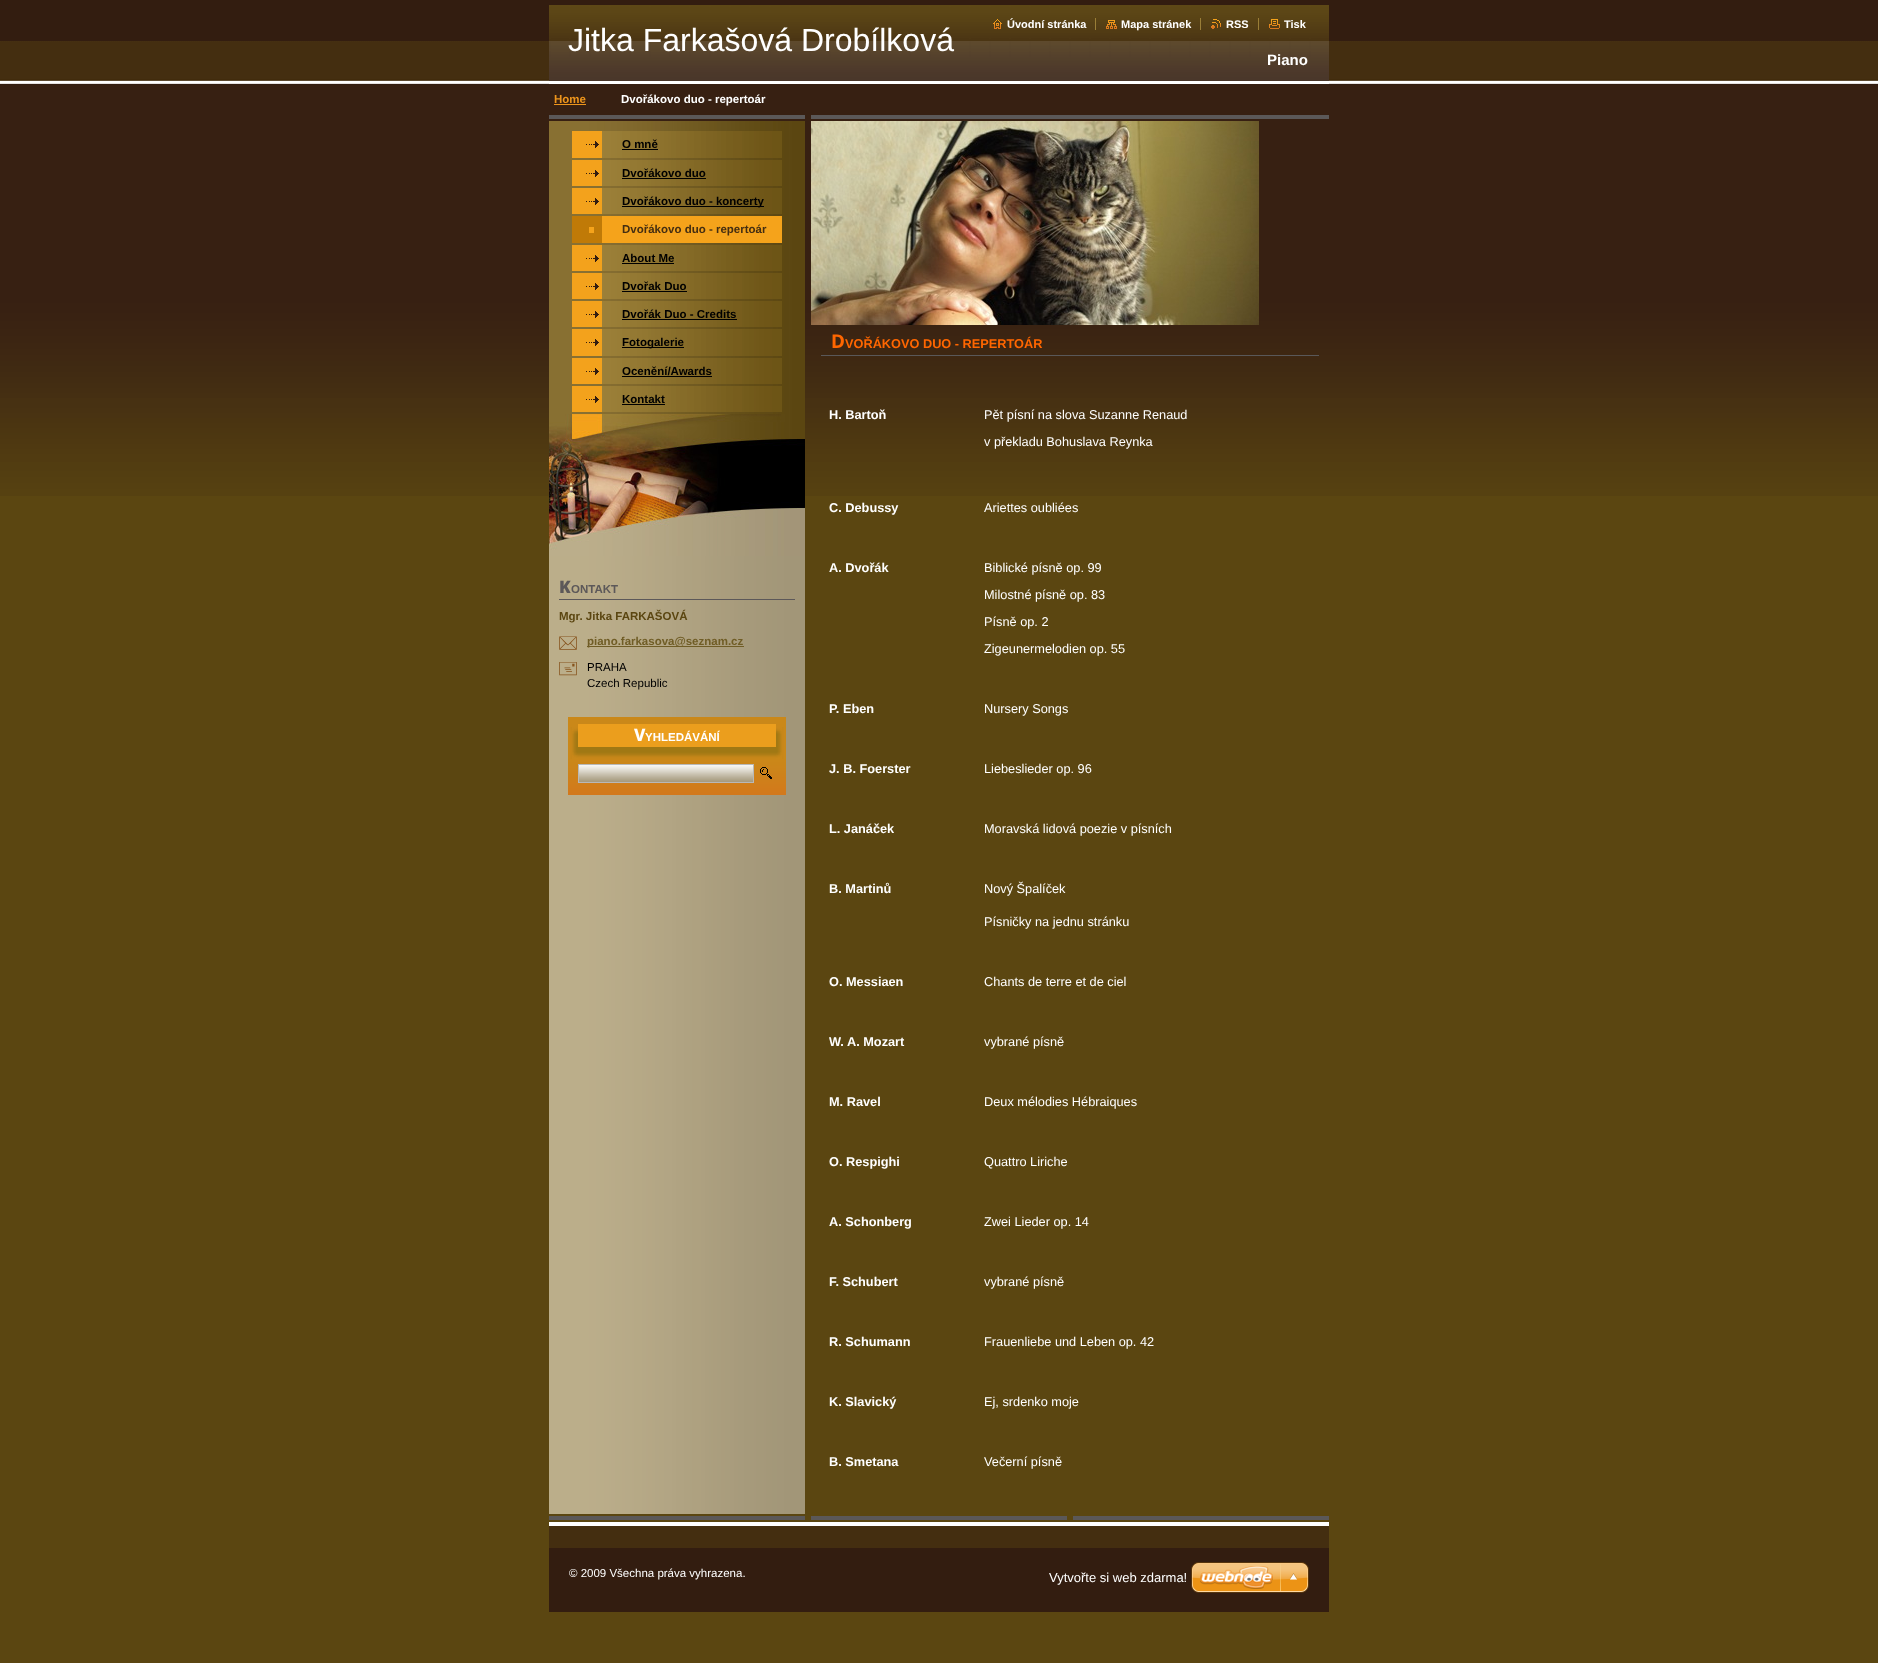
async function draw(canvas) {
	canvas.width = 1878;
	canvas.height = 1663;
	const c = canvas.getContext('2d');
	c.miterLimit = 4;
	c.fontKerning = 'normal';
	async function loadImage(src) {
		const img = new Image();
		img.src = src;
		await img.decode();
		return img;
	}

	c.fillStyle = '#5b4611';
	c.fillRect(0, 0, 1878, 1663);
	c.drawImage(await loadImage('img1.png'), 0, 0, 1878, 496);
	c.drawImage(await loadImage('img2.png'), 549, 556, 256, 958);
	c.drawImage(await loadImage('img3.png'), 549, 0, 780, 81);
	c.fillStyle = '#fff';
	c.fillRect(549, 83, 780, 1);
	c.drawImage(await loadImage('img4.png'), 993, 19, 9, 10);
	c.font = 'bold 11px Liberation Sans';
	c.fillText('Úvodní stránka', 1007, 28);
	c.drawImage(await loadImage('img5.png'), 1106, 20, 11, 9);
	c.fillText('Mapa stránek', 1121, 28);
	c.fillStyle = '#9a7e37';
	c.fillRect(1095, 18, 1, 12);
	c.drawImage(await loadImage('img6.png'), 1211, 19, 10, 10);
	c.fillStyle = '#fff';
	c.fillText('RSS', 1226, 28);
	c.fillStyle = '#9a7e37';
	c.fillRect(1200, 18, 1, 12);
	c.drawImage(await loadImage('img7.png'), 1269, 19, 11, 10);
	c.fillStyle = '#fff';
	c.fillText('Tisk', 1284, 28);
	c.fillStyle = '#9a7e37';
	c.fillRect(1258, 18, 1, 12);
	c.font = '32px Liberation Sans';
	c.fillStyle = '#fff';
	c.fillText('Jitka Farkašová Drobílková', 568, 51);
	c.font = 'bold 15px Liberation Sans';
	c.fillText('Piano', 1267, 65);
	c.fillStyle = '#372012';
	c.fillRect(549, 84, 780, 1);
	c.font = 'bold 11.5px Liberation Sans';
	c.fillStyle = '#ed951c';
	c.fillText('Home', 554, 103);
	c.fillRect(554, 104, 32, 1);
	c.fillStyle = '#fff';
	c.fillText('Dvořákovo duo - repertoár', 621, 103);
	c.drawImage(await loadImage('img8.png'), 549, 115, 256, 6);
	c.drawImage(await loadImage('img9.png'), 549, 121, 256, 293);
	c.drawImage(await loadImage('img10.png'), 572, 131, 210, 27);
	c.drawImage(await loadImage('img11.png'), 586, 141, 13, 7);
	c.fillStyle = '#000';
	c.fillText('O mně', 622, 148);
	c.fillRect(622, 149, 36, 1);
	c.drawImage(await loadImage('img12.png'), 572, 160, 210, 26);
	c.drawImage(await loadImage('img11.png'), 586, 170, 13, 7);
	c.fillText('Dvořákovo duo', 622, 177);
	c.fillRect(622, 178, 84, 1);
	c.drawImage(await loadImage('img12.png'), 572, 188, 210, 26);
	c.drawImage(await loadImage('img11.png'), 586, 198, 13, 7);
	c.fillRect(622, 206, 142, 1);
	c.fillText('Dvořákovo duo - koncerty', 622, 205);
	c.drawImage(await loadImage('img13.png'), 572, 216, 210, 27);
	c.fillStyle = '#f5a31b';
	c.fillRect(589, 227, 5, 6);
	c.fillStyle = '#442e12';
	c.fillText('Dvořákovo duo - repertoár', 622, 233);
	c.drawImage(await loadImage('img12.png'), 572, 245, 210, 26);
	c.drawImage(await loadImage('img11.png'), 586, 255, 13, 7);
	c.fillStyle = '#000';
	c.fillText('About Me', 622, 262);
	c.fillRect(622, 263, 52, 1);
	c.drawImage(await loadImage('img12.png'), 572, 273, 210, 26);
	c.drawImage(await loadImage('img11.png'), 586, 283, 13, 7);
	c.fillText('Dvořak Duo', 622, 290);
	c.fillRect(622, 291, 65, 1);
	c.drawImage(await loadImage('img12.png'), 572, 301, 210, 26);
	c.drawImage(await loadImage('img11.png'), 586, 311, 13, 7);
	c.fillText('Dvořák Duo - Credits', 622, 318);
	c.fillRect(622, 319, 115, 1);
	c.drawImage(await loadImage('img10.png'), 572, 329, 210, 27);
	c.drawImage(await loadImage('img11.png'), 586, 339, 13, 7);
	c.fillRect(622, 347, 62, 1);
	c.fillText('Fotogalerie', 622, 346);
	c.drawImage(await loadImage('img12.png'), 572, 358, 210, 26);
	c.drawImage(await loadImage('img11.png'), 586, 368, 13, 7);
	c.fillText('Ocenění/Awards', 622, 375);
	c.fillRect(622, 376, 90, 1);
	c.drawImage(await loadImage('img12.png'), 572, 386, 210, 26);
	c.drawImage(await loadImage('img11.png'), 586, 396, 13, 7);
	c.fillText('Kontakt', 622, 403);
	c.fillRect(622, 404, 43, 1);
	c.drawImage(await loadImage('img14.png'), 549, 414, 256, 142);
	c.fillStyle = '#5c5859';
	c.fillRect(559, 599, 236, 1);
	c.font = '900 17px Noto Sans';
	c.fillText('K', 559, 593);
	c.font = 'bold 11.5px Liberation Sans';
	c.fillText('ONTAKT', 571, 593);
	c.fillStyle = '#5b4611';
	c.fillText('Mgr. Jitka FARKAŠOVÁ', 559, 620);
	c.drawImage(await loadImage('img15.png'), 559, 636, 18, 14);
	c.fillStyle = '#705d26';
	c.fillRect(587, 646, 44, 1);
	c.fillText('piano.fa', 587, 645);
	c.fillRect(631, 646, 113, 1);
	c.fillText('rkasova@seznam.cz', 631, 645);
	c.drawImage(await loadImage('img16.png'), 559, 662, 18, 14);
	c.font = '11.5px Liberation Sans';
	c.fillStyle = '#000';
	c.fillText('PRAHA', 587, 671);
	c.fillText('Czech Republic', 587, 687);
	c.drawImage(await loadImage('img17.png'), 568, 717, 218, 78);
	c.fillStyle = '#a07814';
	c.fillRect(578, 747, 198, 5);
	c.drawImage(await loadImage('img18.png'), 568, 727, 218, 32);
	c.drawImage(await loadImage('img19.png'), 572, 727, 210, 7);
	c.fillStyle = '#eb9e1d';
	c.fillRect(578, 724, 198, 23);
	c.font = '800 17px Noto Sans';
	c.fillStyle = '#fff';
	c.fillText('V', 634, 741);
	c.font = 'bold 11.5px Liberation Sans';
	c.fillText('YHLEDÁVÁNÍ', 645, 741);
	c.drawImage(await loadImage('img20.png'), 572, 752, 210, 7);
	c.drawImage(await loadImage('img21.png'), 579, 765, 174, 17);
	c.strokeStyle = '#b8b8b8';
	c.strokeRect(578.5, 764.5, 175, 18);
	c.drawImage(await loadImage('img22.png'), 760, 767, 12, 12);
	c.fillStyle = '#5b5858';
	c.fillRect(811, 115, 518, 4);
	c.drawImage(await loadImage('img23.png'), 811, 121, 448, 204);
	c.fillStyle = '#5a5859';
	c.fillRect(821, 355, 498, 1);
	c.font = 'bold 19px Noto Sans';
	c.fillStyle = '#f60';
	c.fillText('D', 831, 348);
	c.font = 'bold 12.75px Liberation Sans';
	c.fillText('VOŘÁKOVO DUO - REPERTOÁR', 845, 348);
	c.fillStyle = '#fff';
	c.fillText('H. Bartoň', 829, 419);
	c.font = '12.75px Liberation Sans';
	c.fillText('Pět písní na slova Suzanne Renaud', 984, 419);
	c.fillText('v překladu Bohuslava Reynka', 984, 446);
	c.font = 'bold 12.75px Liberation Sans';
	c.fillText('C. Debussy', 829, 512);
	c.font = '12.75px Liberation Sans';
	c.fillText('Ariettes oubliées', 984, 512);
	c.font = 'bold 12.75px Liberation Sans';
	c.fillText('A. Dvořák', 829, 572);
	c.font = '12.75px Liberation Sans';
	for (const [text, x, y] of [
		['Biblické písně op. 99', 984, 572],
		['Milostné písně op. 83', 984, 599],
		['Písně op. 2', 984, 626],
		['Zigeunermelodien op. 55', 984, 653],
	]) {
		c.fillText(text, x, y);
	}
	c.font = 'bold 12.75px Liberation Sans';
	c.fillText('P. Eben', 829, 713);
	c.font = '12.75px Liberation Sans';
	c.fillText('Nursery Songs', 984, 713);
	c.font = 'bold 12.75px Liberation Sans';
	c.fillText('J. B. Foerster', 829, 773);
	c.font = '12.75px Liberation Sans';
	c.fillText('Liebeslieder op. 96', 984, 773);
	c.font = 'bold 12.75px Liberation Sans';
	c.fillText('L. Janáček', 829, 833);
	c.font = '12.75px Liberation Sans';
	c.fillText('Moravská lidová poezie v písních', 984, 833);
	c.font = 'bold 12.75px Liberation Sans';
	c.fillText('B. Martinů', 829, 893);
	c.font = '12.75px Liberation Sans';
	c.fillText('Nový Špalíček', 984, 893);
	c.fillText('Písničky na jednu stránku', 984, 926);
	c.font = 'bold 12.75px Liberation Sans';
	c.fillText('O. Messiaen', 829, 986);
	c.font = '12.75px Liberation Sans';
	c.fillText('Chants de terre et de ciel', 984, 986);
	c.font = 'bold 12.75px Liberation Sans';
	c.fillText('W. A. Mozart', 829, 1046);
	c.font = '12.75px Liberation Sans';
	c.fillText('vybrané písně', 984, 1046);
	c.font = 'bold 12.75px Liberation Sans';
	c.fillText('M. Ravel', 829, 1106);
	c.font = '12.75px Liberation Sans';
	c.fillText('Deux mélodies Hébraiques', 984, 1106);
	c.font = 'bold 12.75px Liberation Sans';
	c.fillText('O. Respighi', 829, 1166);
	c.font = '12.75px Liberation Sans';
	c.fillText('Quattro Liriche', 984, 1166);
	c.font = 'bold 12.75px Liberation Sans';
	c.fillText('A. Schonberg', 829, 1226);
	c.font = '12.75px Liberation Sans';
	c.fillText('Zwei Lieder op. 14', 984, 1226);
	c.font = 'bold 12.75px Liberation Sans';
	c.fillText('F. Schubert', 829, 1286);
	c.font = '12.75px Liberation Sans';
	c.fillText('vybrané písně', 984, 1286);
	c.font = 'bold 12.75px Liberation Sans';
	c.fillText('R. Schumann', 829, 1346);
	c.font = '12.75px Liberation Sans';
	c.fillText('Frauenliebe und Leben op. 42', 984, 1346);
	c.font = 'bold 12.75px Liberation Sans';
	c.fillText('K. Slavický', 829, 1406);
	c.font = '12.75px Liberation Sans';
	c.fillText('Ej, srdenko moje', 984, 1406);
	c.font = 'bold 12.75px Liberation Sans';
	c.fillText('B. Smetana', 829, 1466);
	c.font = '12.75px Liberation Sans';
	c.fillText('Večerní písně', 984, 1466);
	c.fillStyle = '#331d10';
	c.fillRect(549, 1548, 780, 64);
	c.drawImage(await loadImage('img24.png'), 549, 1514, 780, 12);
	c.fillStyle = '#442e10';
	c.fillRect(549, 1526, 780, 22);
	c.font = '11.5px Liberation Sans';
	c.fillStyle = '#fff';
	c.fillText('© 2009 Všechna práva vyhrazena.', 569, 1577);
	c.font = '13px Liberation Sans';
	c.fillText('Vytvořte si web zdarma!', 1049, 1582);
	c.drawImage(await loadImage('img25.png'), 1191, 1562, 118, 31);
}

draw(document.querySelector('canvas'));
